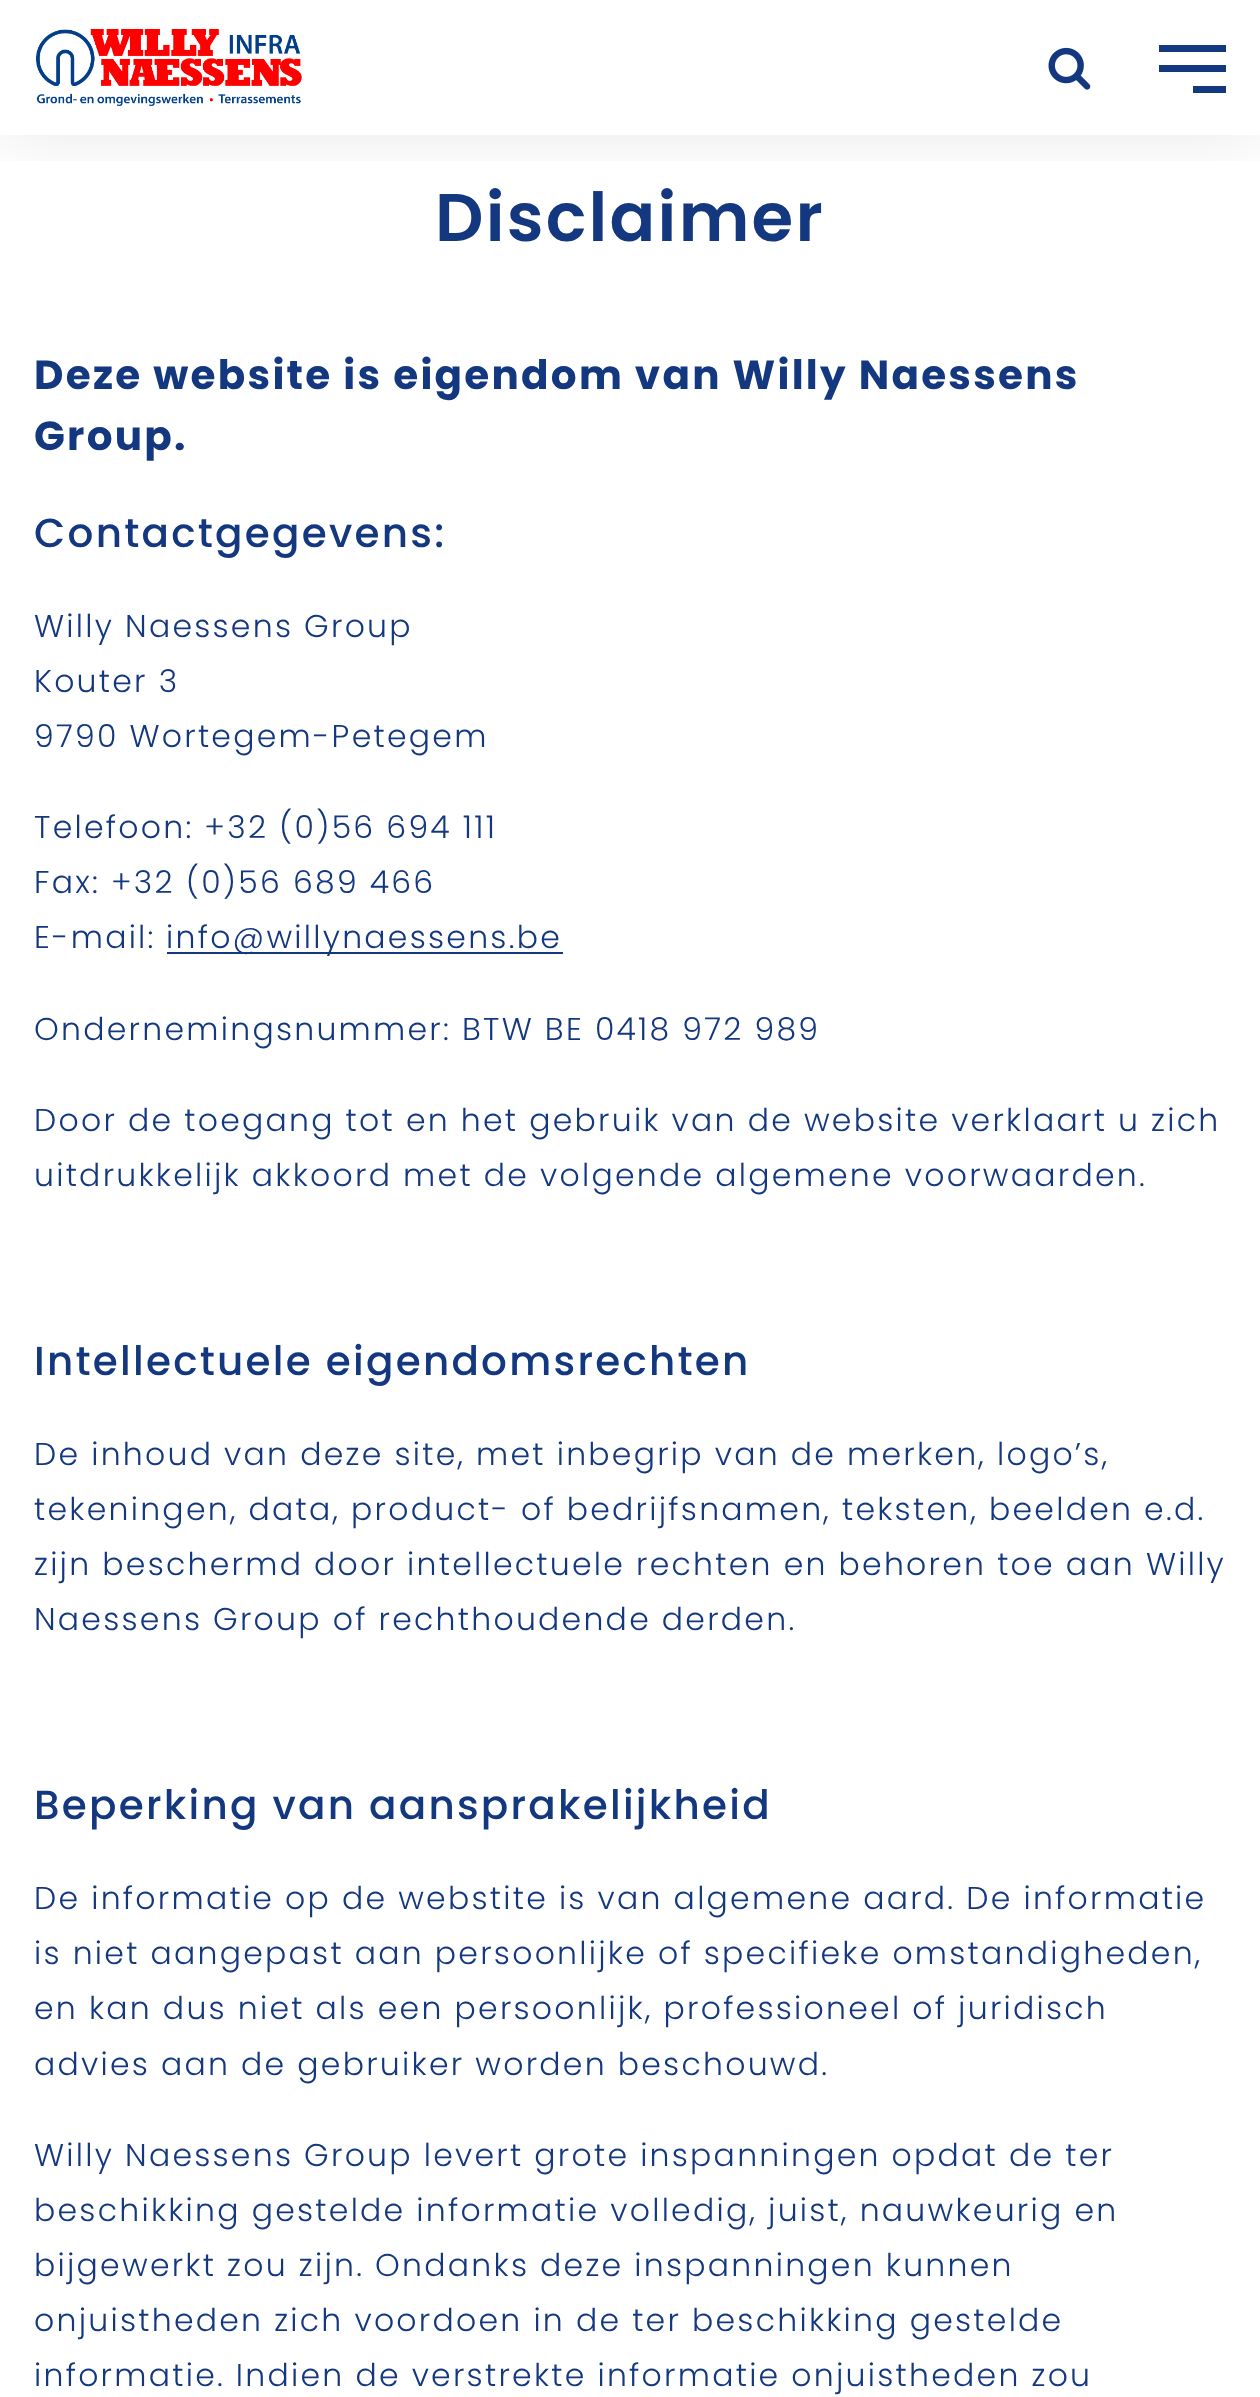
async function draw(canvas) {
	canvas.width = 1260;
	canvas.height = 2397;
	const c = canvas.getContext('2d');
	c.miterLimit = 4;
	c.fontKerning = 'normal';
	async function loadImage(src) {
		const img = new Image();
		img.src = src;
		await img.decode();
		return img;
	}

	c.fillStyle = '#fff';
	c.fillRect(0, 0, 1260, 2397);
	c.save();
	c.beginPath();
	c.rect(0, 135, 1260, 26);
	c.clip();
	c.fillStyle = '#00000017';
	c.filter = 'blur(34px)';
	c.beginPath();
	c.rect(0, 0, 1260, 135);
	c.fill();
	c.filter = 'none';
	c.restore();
	c.drawImage(await loadImage('img1.png'), 36, 29, 266, 77);
	c.drawImage(await loadImage('img2.png'), 1048, 47, 43, 43);
	for (const [x, y, w, h, color] of [
		[1159, 45, 67, 7, '#14387f'],
		[1159, 65, 67, 7, '#14387f'],
		[1193, 86, 33, 7, '#14387f'],
	]) {
		c.fillStyle = color;
		c.fillRect(x, y, w, h);
	}
	c.letterSpacing = '2.25px';
	c.font = '600 67.5px Poppins';
	c.fillText('Disclaimer', 435, 241);
	c.font = 'bold 40.5px Poppins';
	c.fillText('Deze website is eigendom van Willy Naessens', 34, 389);
	c.fillText('Group.', 34, 450);
	c.font = '500 40.5px Poppins';
	c.fillText('Contactgegevens:', 34, 547);
	c.font = '300 31.5px Poppins';
	for (const [text, x, y] of [
		['Willy Naessens Group', 34, 637],
		['Kouter 3', 34, 692],
		['9790 Wortegem-Petegem', 34, 747],
		['Telefoon: +32 (0)56 694 111', 34, 838],
		['Fax: +32 (0)56 689 466', 34, 893],
		['E-mail:', 34, 948],
	]) {
		c.fillText(text, x, y);
	}
	c.fillRect(167, 952, 396, 2);
	for (const [text, x, y] of [
		['info@willynaessens.be', 166, 948],
		['Ondernemingsnummer: BTW BE 0418 972 989', 34, 1040],
		['Door de toegang tot en het gebruik van de website verklaart u zich', 34, 1131],
		['uitdrukkelijk akkoord met de volgende algemene voorwaarden.', 34, 1186],
	]) {
		c.fillText(text, x, y);
	}
	c.font = '500 40.5px Poppins';
	c.fillText('Intellectuele eigendomsrechten', 34, 1375);
	c.font = '300 31.5px Poppins';
	for (const [text, x, y] of [
		['De inhoud van deze site, met inbegrip van de merken, logo’s,', 34, 1465],
		['tekeningen, data, product- of bedrijfsnamen, teksten, beelden e.d.', 34, 1520],
		['zijn beschermd door intellectuele rechten en behoren toe aan Willy', 34, 1575],
		['Naessens Group of rechthoudende derden.', 34, 1630],
	]) {
		c.fillText(text, x, y);
	}
	c.font = '500 40.5px Poppins';
	c.fillText('Beperking van aansprakelijkheid', 34, 1819);
	c.font = '300 31.5px Poppins';
	for (const [text, x, y] of [
		['De informatie op de webstite is van algemene aard. De informatie', 34, 1909],
		['is niet aangepast aan persoonlijke of specifieke omstandigheden,', 34, 1964],
		['en kan dus niet als een persoonlijk, professioneel of juridisch', 34, 2019],
		['advies aan de gebruiker worden beschouwd.', 34, 2075],
		['Willy Naessens Group levert grote inspanningen opdat de ter', 34, 2166],
		['beschikking gestelde informatie volledig, juist, nauwkeurig en', 34, 2221],
		['bijgewerkt zou zijn. Ondanks deze inspanningen kunnen', 34, 2276],
		['onjuistheden zich voordoen in de ter beschikking gestelde', 34, 2331],
		['informatie. Indien de verstrekte informatie onjuistheden zou', 34, 2386],
	]) {
		c.fillText(text, x, y);
	}
}

draw(document.querySelector('canvas'));
